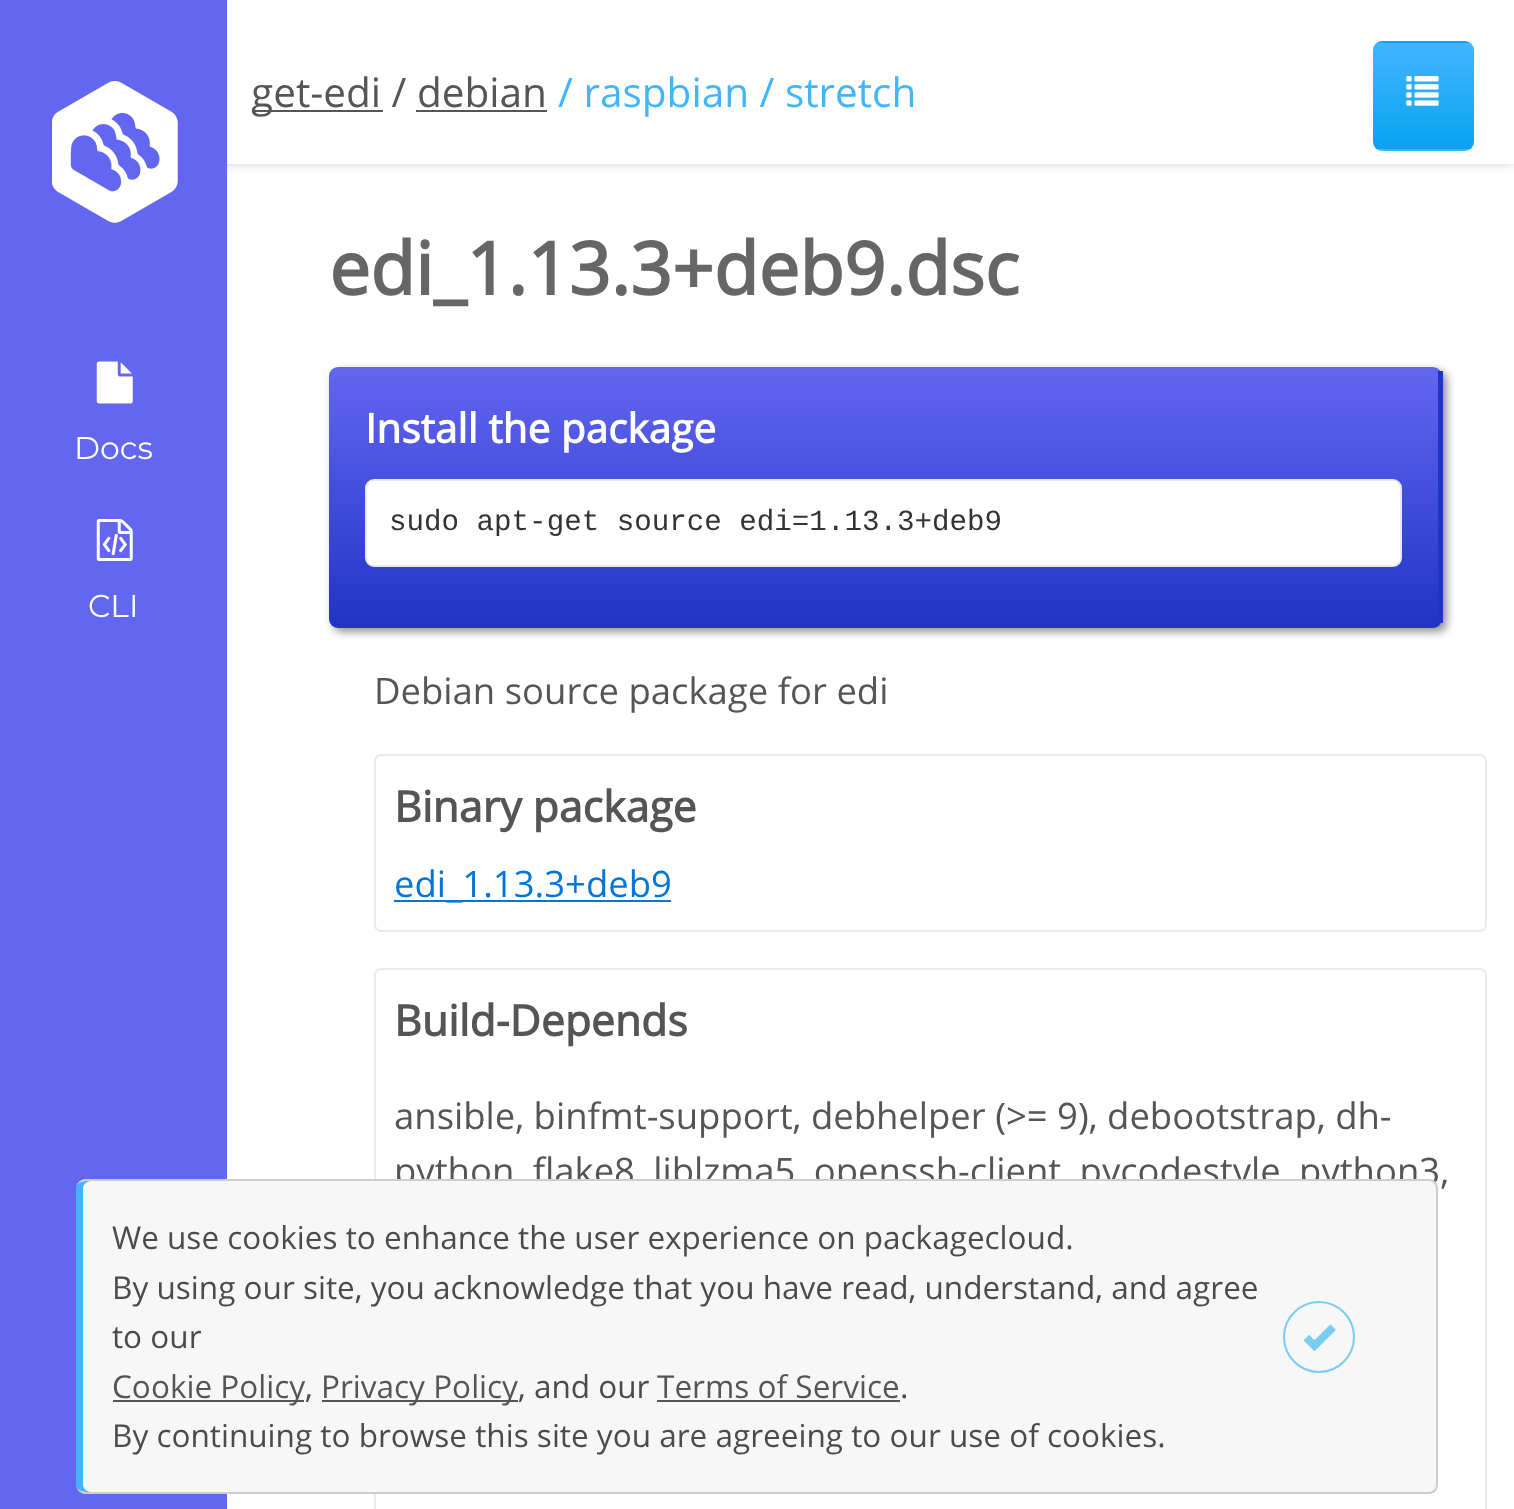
async function draw(canvas) {
	canvas.width = 1514;
	canvas.height = 1509;
	const c = canvas.getContext('2d');
	c.miterLimit = 4;
	c.fontKerning = 'normal';
	async function loadImage(src) {
		const img = new Image();
		img.src = src;
		await img.decode();
		return img;
	}
	let gradient;

	c.fillStyle = '#fff';
	c.fillRect(0, 0, 1514, 1509);
	c.save();
	c.beginPath();
	c.rect(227, 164, 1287, 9);
	c.clip();
	c.fillStyle = '#bdbdbd';
	c.filter = 'blur(5.5px)';
	c.beginPath();
	c.rect(0, -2, 1514, 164);
	c.fill();
	c.filter = 'none';
	c.restore();
	c.save();
	c.beginPath();
	c.roundRect(1373, 41, 101, 110, 9);
	c.clip();
	gradient = c.createLinearGradient(1423, -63, 1423, 43);
	gradient.addColorStop(0, '#42b5ff');
	gradient.addColorStop(1, '#09a3f0');
	c.fillStyle = gradient;
	c.fillRect(1373, 41, 101, 2);
	gradient = c.createLinearGradient(1423, 43, 1423, 149);
	gradient.addColorStop(0, '#42b5ff');
	gradient.addColorStop(1, '#09a3f0');
	c.fillStyle = gradient;
	c.fillRect(1373, 43, 101, 106);
	gradient = c.createLinearGradient(1423, 149, 1423, 254);
	gradient.addColorStop(0, '#42b5ff');
	gradient.addColorStop(1, '#09a3f0');
	c.fillStyle = gradient;
	c.fillRect(1373, 149, 101, 2);
	c.restore();
	c.drawImage(await loadImage('img1.png'), 1406, 76, 33, 30);
	c.fillStyle = '#6366f1';
	c.fillRect(0, 0, 227, 1509);
	c.drawImage(await loadImage('img2.png'), 52, 81, 126, 142);
	c.drawImage(await loadImage('img3.png'), 96, 361, 37, 43);
	c.font = '31.5px Montserrat';
	c.fillStyle = '#fff';
	c.fillText('Docs', 74, 459);
	c.drawImage(await loadImage('img4.png'), 96, 519, 37, 42);
	c.fillText('CLI', 88, 617);
	c.fillStyle = '#555';
	c.fillRect(252, 110, 131, 2);
	c.font = '40.5px Open Sans';
	c.fillText('get-edi / debian', 251, 107);
	c.fillRect(416, 110, 131, 2);
	c.fillStyle = '#42b5ff';
	c.fillText('/ raspbian / stretch', 558, 107);
	c.font = 'bold 73px Open Sans';
	c.fillStyle = '#666';
	c.fillText('edi_1.13.3+deb9.dsc', 329, 295);
	c.fillStyle = '#969292';
	c.filter = 'blur(4.5px)';
	c.beginPath();
	c.roundRect(333, 371, 1114, 261, 9);
	c.fill();
	c.filter = 'none';
	gradient = c.createLinearGradient(883, 367, 883, 628);
	gradient.addColorStop(0, '#6366f1');
	gradient.addColorStop(1, '#2134c5');
	c.fillStyle = gradient;
	c.beginPath();
	c.roundRect(329, 367, 1113, 261, 9);
	c.fill();
	c.fillStyle = '#2134c5';
	c.fillRect(1438, 371, 5, 252);
	c.font = 'bold 40.5px Open Sans';
	c.fillStyle = '#fff';
	c.fillText('Install the package', 365, 443);
	c.beginPath();
	c.roundRect(366, 480, 1035, 86, 8);
	c.fill();
	c.strokeStyle = '#eaeaea';
	c.lineWidth = 2;
	c.stroke();
	c.font = '29.2px Liberation Mono';
	c.fillStyle = '#333';
	c.fillText('sudo apt-get source edi=1.13.3+deb9', 389, 530);
	c.font = '36.45px Open Sans';
	c.fillStyle = '#555';
	c.fillText('Debian source package for edi', 374, 704);
	c.beginPath();
	c.roundRect(375, 755, 1111, 176, 6);
	c.stroke();
	c.font = 'bold 42.75px Open Sans';
	c.fillText('Binary package', 394, 822);
	c.fillStyle = '#0275d8';
	c.fillRect(394, 900, 277, 2);
	c.font = '36.45px Open Sans';
	c.fillText('edi_1.13.3+deb9', 394, 897);
	c.beginPath();
	c.roundRect(375, 969, 1111, 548, 6);
	c.stroke();
	c.font = 'bold 42.75px Open Sans';
	c.fillStyle = '#555';
	c.fillText('Build-Depends', 394, 1036);
	c.font = '36.45px Open Sans';
	c.fillText('ansible, binfmt-support, debhelper (>= 9), debootstrap, dh-', 394, 1129);
	c.fillText('python, flake8, liblzma5, openssh-client, pycodestyle, python3,', 394, 1184);
	c.fillStyle = '#f7f7f7';
	c.beginPath();
	c.roundRect(77, 1179, 1361, 315, 9);
	c.fill();
	c.fillStyle = '#42b5ff';
	c.beginPath();
	c.moveTo(86, 1181);
	c.bezierCurveTo(81, 1181, 76, 1184, 76, 1188);
	c.lineTo(76, 1485);
	c.bezierCurveTo(76, 1489, 81, 1492, 86, 1492);
	c.lineTo(90, 1492);
	c.bezierCurveTo(86, 1491, 83, 1488, 83, 1485);
	c.lineTo(83, 1188);
	c.bezierCurveTo(83, 1185, 86, 1182, 90, 1181);
	c.closePath();
	c.fill();
	c.fillStyle = '#cecece';
	c.beginPath();
	c.moveTo(86, 1179);
	c.lineTo(1429, 1179);
	c.bezierCurveTo(1434, 1179, 1438, 1183, 1438, 1188);
	c.lineTo(1438, 1485);
	c.bezierCurveTo(1438, 1490, 1434, 1494, 1429, 1494);
	c.lineTo(86, 1494);
	c.bezierCurveTo(81, 1494, 76, 1490, 76, 1485);
	c.lineTo(76, 1188);
	c.bezierCurveTo(76, 1183, 81, 1179, 86, 1179);
	c.closePath();
	c.moveTo(86, 1181);
	c.lineTo(1429, 1181);
	c.bezierCurveTo(1432, 1181, 1436, 1184, 1436, 1188);
	c.lineTo(1436, 1485);
	c.bezierCurveTo(1436, 1489, 1432, 1492, 1429, 1492);
	c.lineTo(86, 1492);
	c.bezierCurveTo(81, 1492, 76, 1489, 76, 1485);
	c.lineTo(76, 1188);
	c.bezierCurveTo(76, 1184, 81, 1181, 86, 1181);
	c.closePath();
	c.fill('evenodd');
	c.font = '31.5px Open Sans';
	c.fillStyle = '#4c4b4b';
	for (const [text, x, y] of [
		['We use cookies to enhance the user experience on packagecloud.', 112, 1249],
		['By using our site, you acknowledge that you have read, understand, and agree', 112, 1299],
		['to our', 112, 1348],
	]) {
		c.fillText(text, x, y);
	}
	c.fillStyle = '#555';
	c.fillRect(113, 1400, 191, 2);
	c.fillText('Cookie Policy', 112, 1398);
	c.fillStyle = '#4c4b4b';
	c.fillText(',', 305, 1398);
	c.fillStyle = '#555';
	c.fillRect(322, 1400, 196, 2);
	c.fillText('Privacy Policy', 321, 1398);
	c.fillStyle = '#4c4b4b';
	c.fillText(', and our', 518, 1398);
	c.fillStyle = '#555';
	c.fillText('Terms of Service', 657, 1398);
	c.fillRect(657, 1400, 243, 2);
	c.fillStyle = '#4c4b4b';
	c.fillText('.', 900, 1398);
	c.fillText('By continuing to browse this site you are agreeing to our use of cookies.', 112, 1447);
	c.beginPath();
	c.arc(1319, 1337, 35, 0, 2 * Math.PI);
	c.strokeStyle = '#7accf3';
	c.stroke();
	c.drawImage(await loadImage('img5.png'), 1303, 1324, 33, 27);
}

draw(document.querySelector('canvas'));
